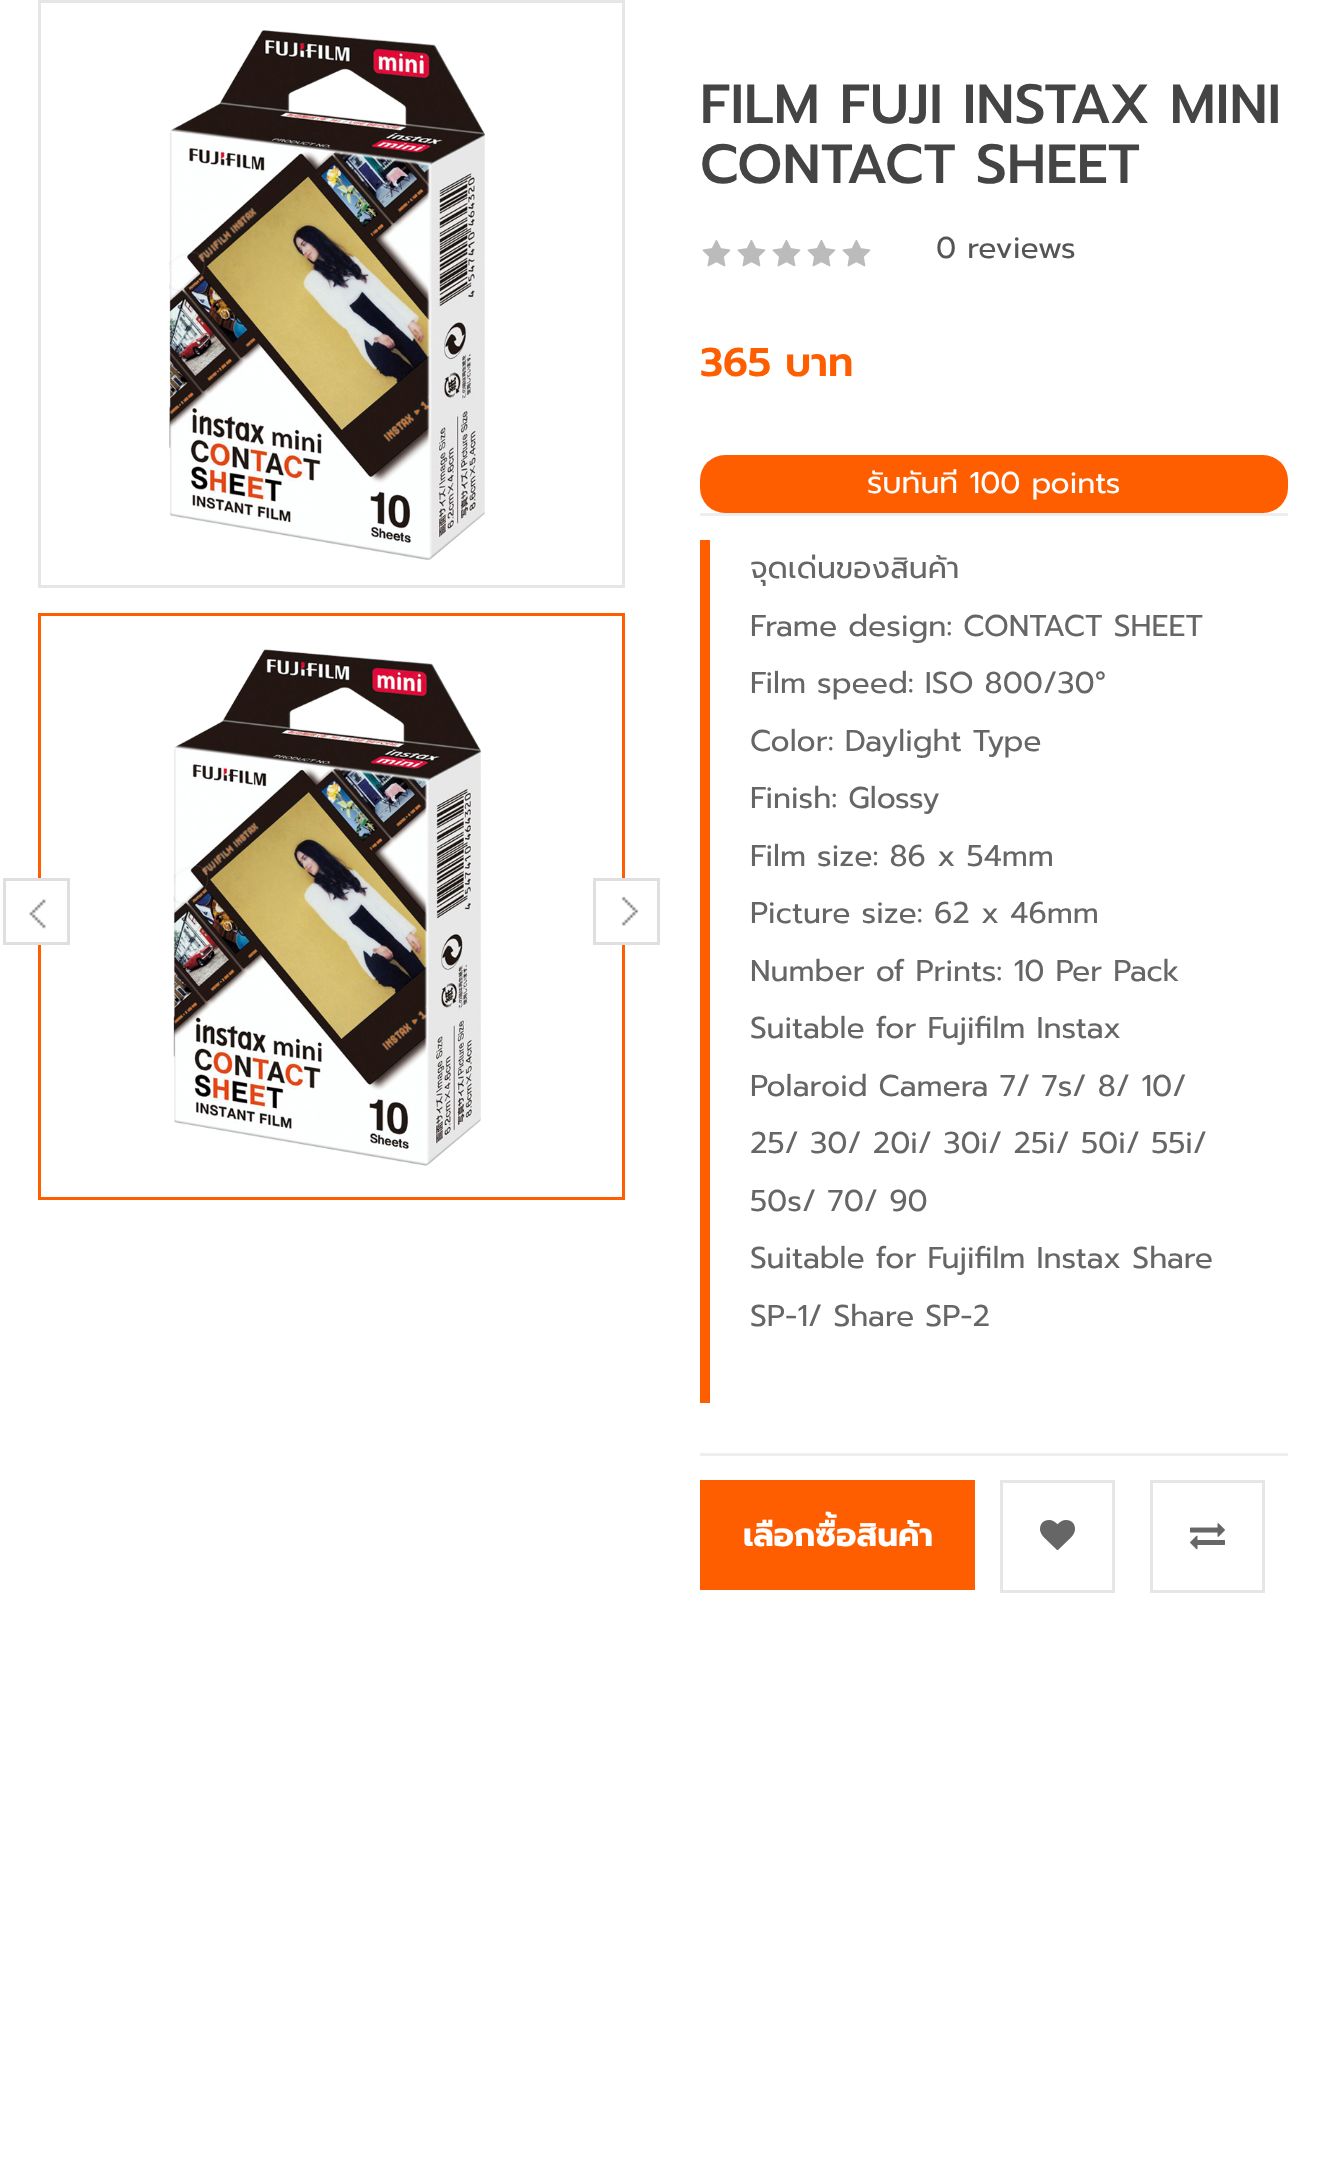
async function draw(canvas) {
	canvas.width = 1324;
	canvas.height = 2179;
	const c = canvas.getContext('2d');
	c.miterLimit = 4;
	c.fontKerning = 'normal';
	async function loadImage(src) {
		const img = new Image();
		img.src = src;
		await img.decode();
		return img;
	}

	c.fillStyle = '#fff';
	c.fillRect(0, 0, 1324, 2179);
	c.strokeStyle = '#e6e6e6';
	c.lineWidth = 3;
	c.strokeRect(39.5, 1.5, 584, 585);
	c.drawImage(await loadImage('img1.png'), 169, 30, 316, 530);
	c.strokeStyle = '#ff5e00';
	c.strokeRect(39.5, 614.5, 584, 584);
	c.drawImage(await loadImage('img2.png'), 173, 649, 308, 517);
	c.fillRect(38, 881, 3, 61);
	c.drawImage(await loadImage('img3.png'), 29, 899, 17, 30);
	c.strokeStyle = '#dfdfdf';
	c.strokeRect(4.5, 879.5, 64, 64);
	c.fillRect(622, 881, 3, 61);
	c.drawImage(await loadImage('img4.png'), 621, 896, 18, 30);
	c.strokeRect(594.5, 879.5, 64, 64);
	c.font = '500 55px Prompt';
	c.fillStyle = '#444';
	c.fillText('FILM FUJI INSTAX MINI', 700, 123);
	c.fillText('CONTACT SHEET', 700, 183);
	c.drawImage(await loadImage('img5.png'), 702, 239, 29, 28);
	c.drawImage(await loadImage('img5.png'), 737, 239, 29, 28);
	c.drawImage(await loadImage('img5.png'), 772, 239, 29, 28);
	c.drawImage(await loadImage('img5.png'), 807, 239, 29, 28);
	c.drawImage(await loadImage('img5.png'), 842, 239, 29, 28);
	c.font = '30px Prompt';
	c.fillStyle = '#555';
	c.fillText('0 reviews', 936, 258);
	c.font = '600 40px Prompt';
	c.fillStyle = '#ff5e00';
	c.fillText('365 บาท', 700, 376);
	c.beginPath();
	c.roundRect(700, 455, 588, 58, 25);
	c.fill();
	c.font = '30px Prompt';
	c.fillStyle = '#fff';
	c.fillText('รับทันที 100 points', 867, 493);
	for (const [x, y, w, h, color] of [
		[700, 513, 588, 3, '#eee'],
		[700, 1453, 588, 3, '#eee'],
		[700, 540, 10, 863, '#ff5e00'],
	]) {
		c.fillStyle = color;
		c.fillRect(x, y, w, h);
	}
	c.fillStyle = '#666';
	for (const [text, x, y] of [
		['จุดเด่นของสินค้า', 750, 578],
		['Frame design: CONTACT SHEET', 750, 636],
		['Film speed: ISO 800/30°', 750, 693],
		['Color: Daylight Type', 750, 751],
		['Finish: Glossy', 750, 808],
		['Film size: 86 x 54mm', 750, 866],
		['Picture size: 62 x 46mm', 750, 923],
		['Number of Prints: 10 Per Pack', 750, 981],
		['Suitable for Fujifilm Instax', 750, 1038],
		['Polaroid Camera 7/ 7s/ 8/ 10/', 750, 1096],
		['25/ 30/ 20i/ 30i/ 25i/ 50i/ 55i/', 750, 1153],
		['50s/ 70/ 90', 750, 1211],
		['Suitable for Fujifilm Instax Share', 750, 1268],
		['SP-1/ Share SP-2', 750, 1326],
	]) {
		c.fillText(text, x, y);
	}
	c.fillStyle = '#ff5e00';
	c.fillRect(700, 1480, 275, 110);
	c.font = 'bold 32.5px Prompt';
	c.fillStyle = '#fff';
	c.fillText('เลือกซื้อสินค้า', 743, 1546);
	c.strokeStyle = '#e6e6e6';
	c.strokeRect(1001.5, 1481.5, 112, 110);
	c.drawImage(await loadImage('img6.png'), 1040, 1520, 35, 30);
	c.strokeRect(1151.5, 1481.5, 112, 110);
	c.drawImage(await loadImage('img7.png'), 1190, 1523, 35, 27);
}

draw(document.querySelector('canvas'));
